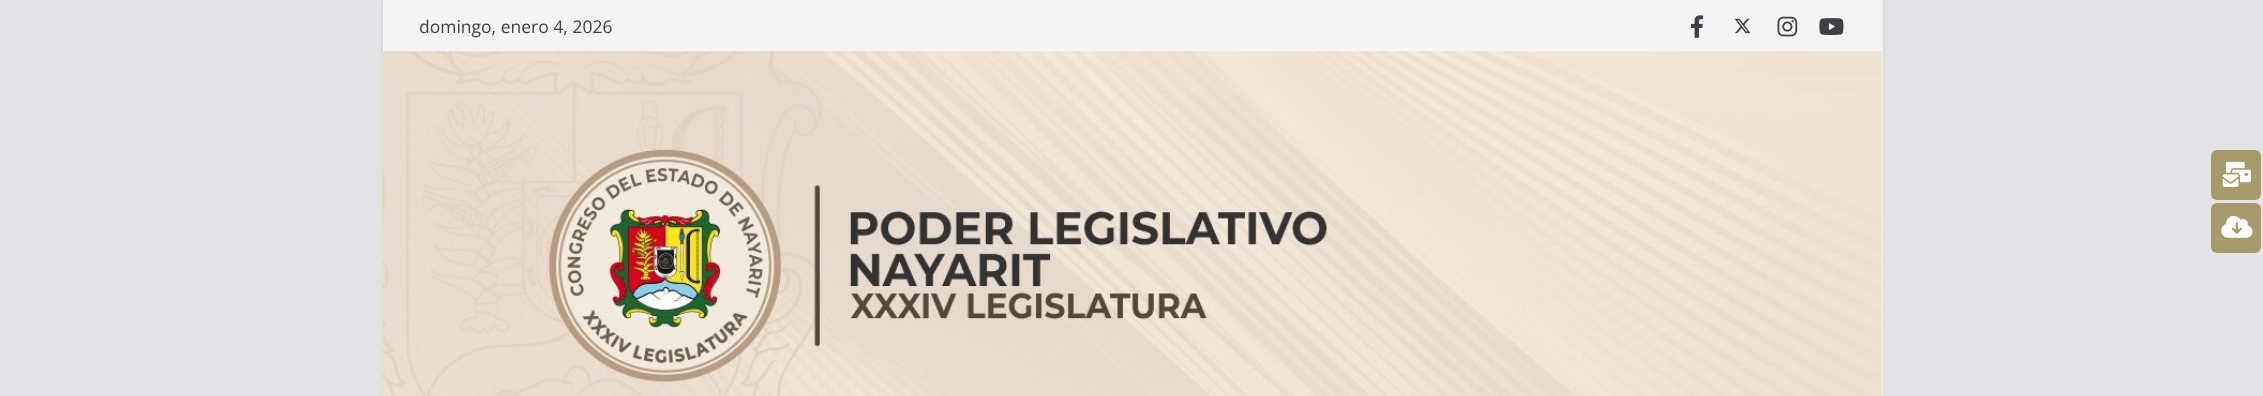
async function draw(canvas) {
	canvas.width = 2263;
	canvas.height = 396;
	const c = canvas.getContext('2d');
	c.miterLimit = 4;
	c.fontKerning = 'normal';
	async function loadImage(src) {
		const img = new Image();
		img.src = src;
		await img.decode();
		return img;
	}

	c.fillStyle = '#e4e4e7';
	c.fillRect(0, 0, 2263, 396);
	c.fillStyle = '#0000000d';
	c.filter = 'blur(3px)';
	c.beginPath();
	c.rect(383, 1, 1500, 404);
	c.fill();
	c.filter = 'none';
	c.fillStyle = '#fff';
	c.fillRect(383, 51, 1500, 345);
	c.fillStyle = '#0000001a';
	c.filter = 'blur(1px)';
	c.beginPath();
	c.rect(383, 0, 1500, 51);
	c.fill();
	c.filter = 'none';
	c.fillStyle = '#f4f4f5';
	c.fillRect(383, 0, 1500, 51);
	c.font = '17.5px Open Sans';
	c.fillStyle = '#3f3f46';
	c.fillText('domingo, enero 4, 2026', 419, 33);
	c.drawImage(await loadImage('img1.png'), 1691, 15, 13, 23);
	c.drawImage(await loadImage('img2.png'), 1734, 18, 17, 16);
	c.drawImage(await loadImage('img3.png'), 1777, 16, 21, 21);
	c.drawImage(await loadImage('img4.png'), 1819, 18, 25, 17);
	c.drawImage(await loadImage('img5.png'), 382, 51, 1501, 345);
	c.fillStyle = '#a79b6b';
	c.beginPath();
	c.roundRect(2211, 150, 50, 50, 6);
	c.fill();
	c.drawImage(await loadImage('img6.png'), 2222, 161, 29, 26);
	c.beginPath();
	c.roundRect(2211, 203, 50, 50, 6);
	c.fill();
	c.drawImage(await loadImage('img7.png'), 2221, 215, 32, 23);
}

draw(document.querySelector('canvas'));
